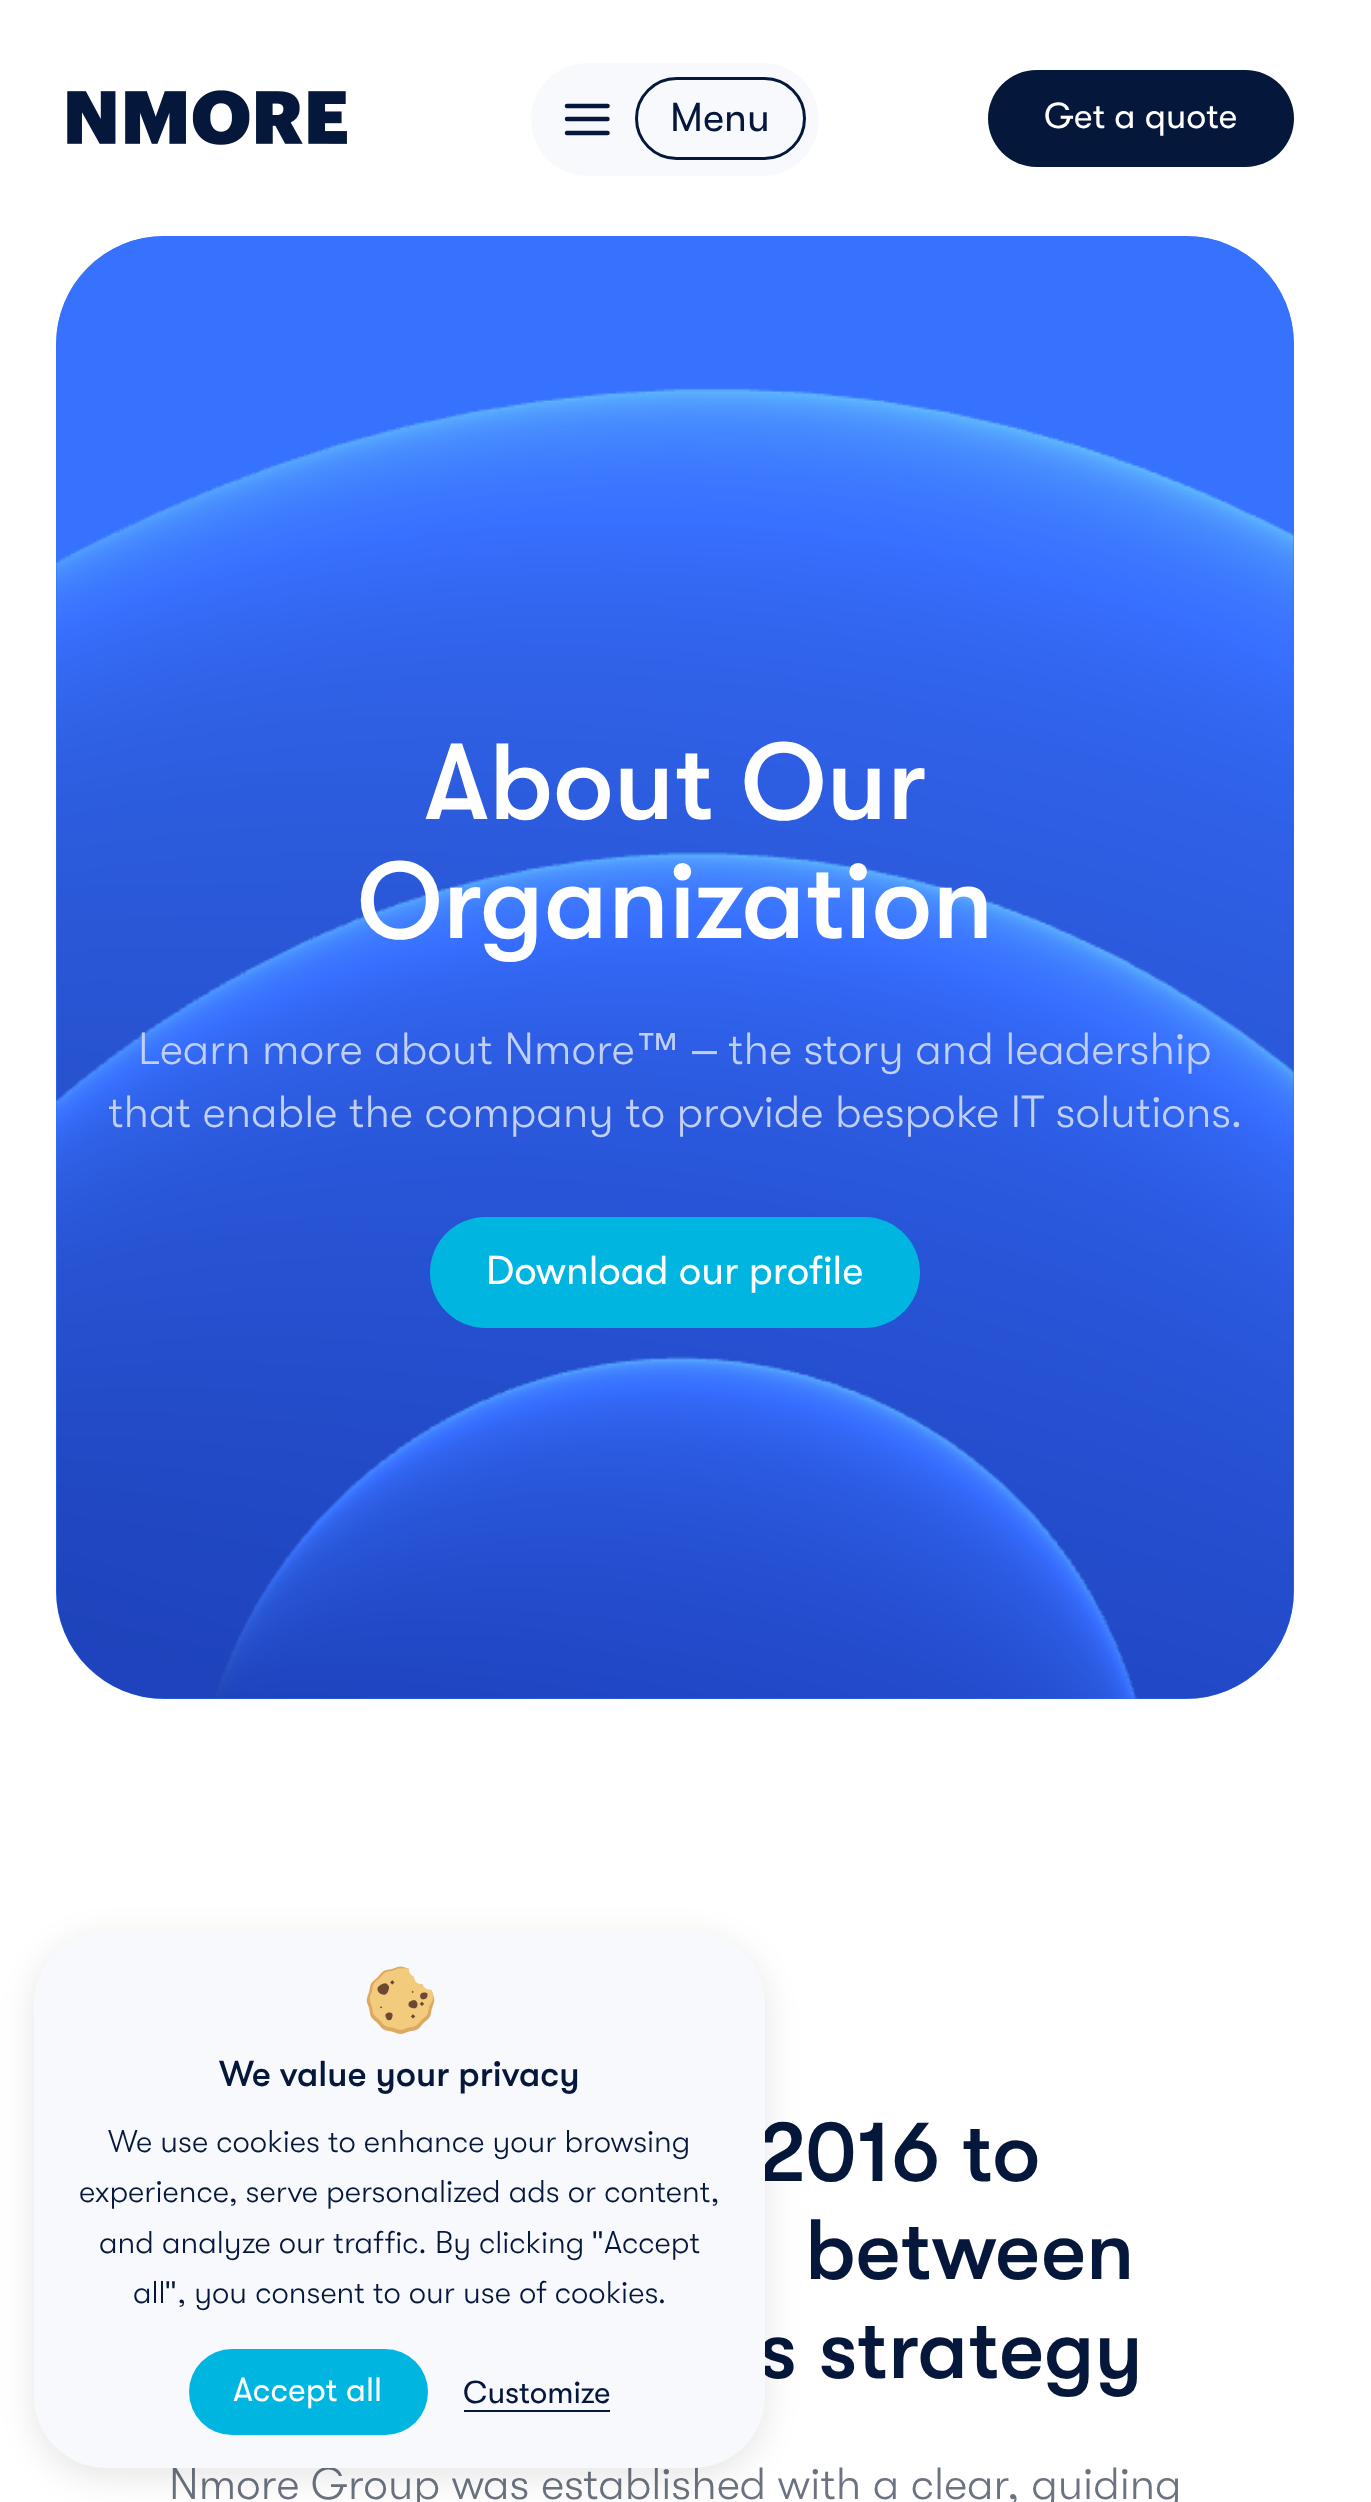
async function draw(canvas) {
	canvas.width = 1371;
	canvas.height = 2502;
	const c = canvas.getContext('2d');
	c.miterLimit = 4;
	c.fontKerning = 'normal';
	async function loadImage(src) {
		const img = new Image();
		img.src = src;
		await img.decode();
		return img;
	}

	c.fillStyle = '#fff';
	c.fillRect(0, 0, 1371, 2502);
	c.drawImage(await loadImage('img1.png'), 67, 90, 280, 55);
	c.fillStyle = '#f8f9fd';
	c.beginPath();
	c.roundRect(531, 63, 288, 113, 56.5);
	c.fill();
	c.beginPath();
	c.moveTo(567, 106);
	c.lineTo(607.5, 106);
	c.moveTo(567, 119);
	c.lineTo(607.5, 119);
	c.moveTo(567, 133);
	c.lineTo(607.5, 133);
	c.strokeStyle = '#05173a';
	c.lineWidth = 4.5;
	c.lineCap = 'round';
	c.stroke();
	c.beginPath();
	c.roundRect(636.5, 78.5, 168, 80, 40);
	c.lineWidth = 3;
	c.stroke();
	c.font = '40.5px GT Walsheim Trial';
	c.fillStyle = '#05173a';
	c.fillText('Menu', 670, 131);
	c.beginPath();
	c.roundRect(988, 70, 306, 97, 48.5);
	c.fill();
	c.font = '36px GT Walsheim Trial';
	c.fillStyle = '#fff';
	c.fillText('Get a quote', 1044, 128);
	c.fillStyle = '#3772fe';
	c.beginPath();
	c.roundRect(56, 236, 1238, 1463, 108);
	c.fill();
	c.drawImage(await loadImage('img2.png'), 56, 236, 1238, 1463);
	c.font = '500 108px GT Walsheim Trial';
	c.fillStyle = '#fff';
	c.fillText('About Our', 424, 819);
	c.fillText('Organization', 357, 938);
	c.font = '300 45px GT Walsheim Trial';
	c.fillStyle = '#c1d0f8';
	c.fillText('Learn more about Nmore', 138, 1064);
	c.font = '45px Liberation Sans';
	c.fillText('™', 635, 1064);
	c.font = '300 45px GT Walsheim Trial';
	c.fillText('the story and leadership', 728, 1064);
	c.font = '45px Liberation Sans';
	c.fillText('–', 692, 1064);
	c.font = '300 45px GT Walsheim Trial';
	c.fillText('that enable the company to provide bespoke IT solutions.', 108, 1127);
	c.fillStyle = '#00b6e0';
	c.beginPath();
	c.roundRect(430, 1217, 490, 111, 55.5);
	c.fill();
	c.font = '40.5px GT Walsheim Trial';
	c.fillStyle = '#fff';
	c.fillText('Download our profile', 486, 1284);
	c.font = '500 85.5px GT Walsheim Trial';
	c.fillStyle = '#05173a';
	for (const [text, x, y] of [
		['2016 to', 757, 2181],
		['between', 805, 2279],
		['s strategy', 758, 2378],
	]) {
		c.fillText(text, x, y);
	}
	c.font = '300 45px GT Walsheim Trial';
	c.fillStyle = '#6b7280';
	c.fillText('Nmore Group was established with a clear, guiding', 169, 2499);
	c.fillStyle = '#0000001a';
	c.filter = 'blur(17px)';
	c.beginPath();
	c.roundRect(34, 1940, 731, 537, 72);
	c.fill();
	c.filter = 'none';
	c.fillStyle = '#f8f9fd';
	c.beginPath();
	c.roundRect(34, 1931, 731, 537, 72);
	c.fill();
	c.drawImage(await loadImage('img3.png'), 366, 1966, 69, 68);
	c.font = '500 36px GT Walsheim Trial';
	c.fillStyle = '#05173a';
	c.fillText('We value your privacy', 219, 2086);
	c.font = '300 31.5px GT Walsheim Trial';
	for (const [text, x, y] of [
		['We use cookies to enhance your browsing', 108, 2152],
		['experience, serve personalized ads or content,', 79, 2202],
		['and analyze our traffic. By clicking', 99, 2253],
	]) {
		c.fillText(text, x, y);
	}
	c.font = '31.5px Liberation Sans';
	c.fillText('"', 592, 2253);
	c.font = '300 31.5px GT Walsheim Trial';
	c.fillText('Accept', 604, 2253);
	c.fillText('all', 133, 2303);
	c.font = '31.5px Liberation Sans';
	c.fillText('"', 165, 2303);
	c.font = '300 31.5px GT Walsheim Trial';
	c.fillText(', you consent to our use of cookies.', 177, 2303);
	c.fillStyle = '#00b6e0';
	c.beginPath();
	c.roundRect(189, 2349, 239, 86, 43);
	c.fill();
	c.font = '33.75px GT Walsheim Trial';
	c.fillStyle = '#fff';
	c.fillText('Accept all', 233, 2401);
	c.font = '31.5px GT Walsheim Trial';
	c.fillStyle = '#05173a';
	c.fillText('Customize', 463, 2403);
	c.fillRect(464, 2410, 146, 2);
}

draw(document.querySelector('canvas'));
